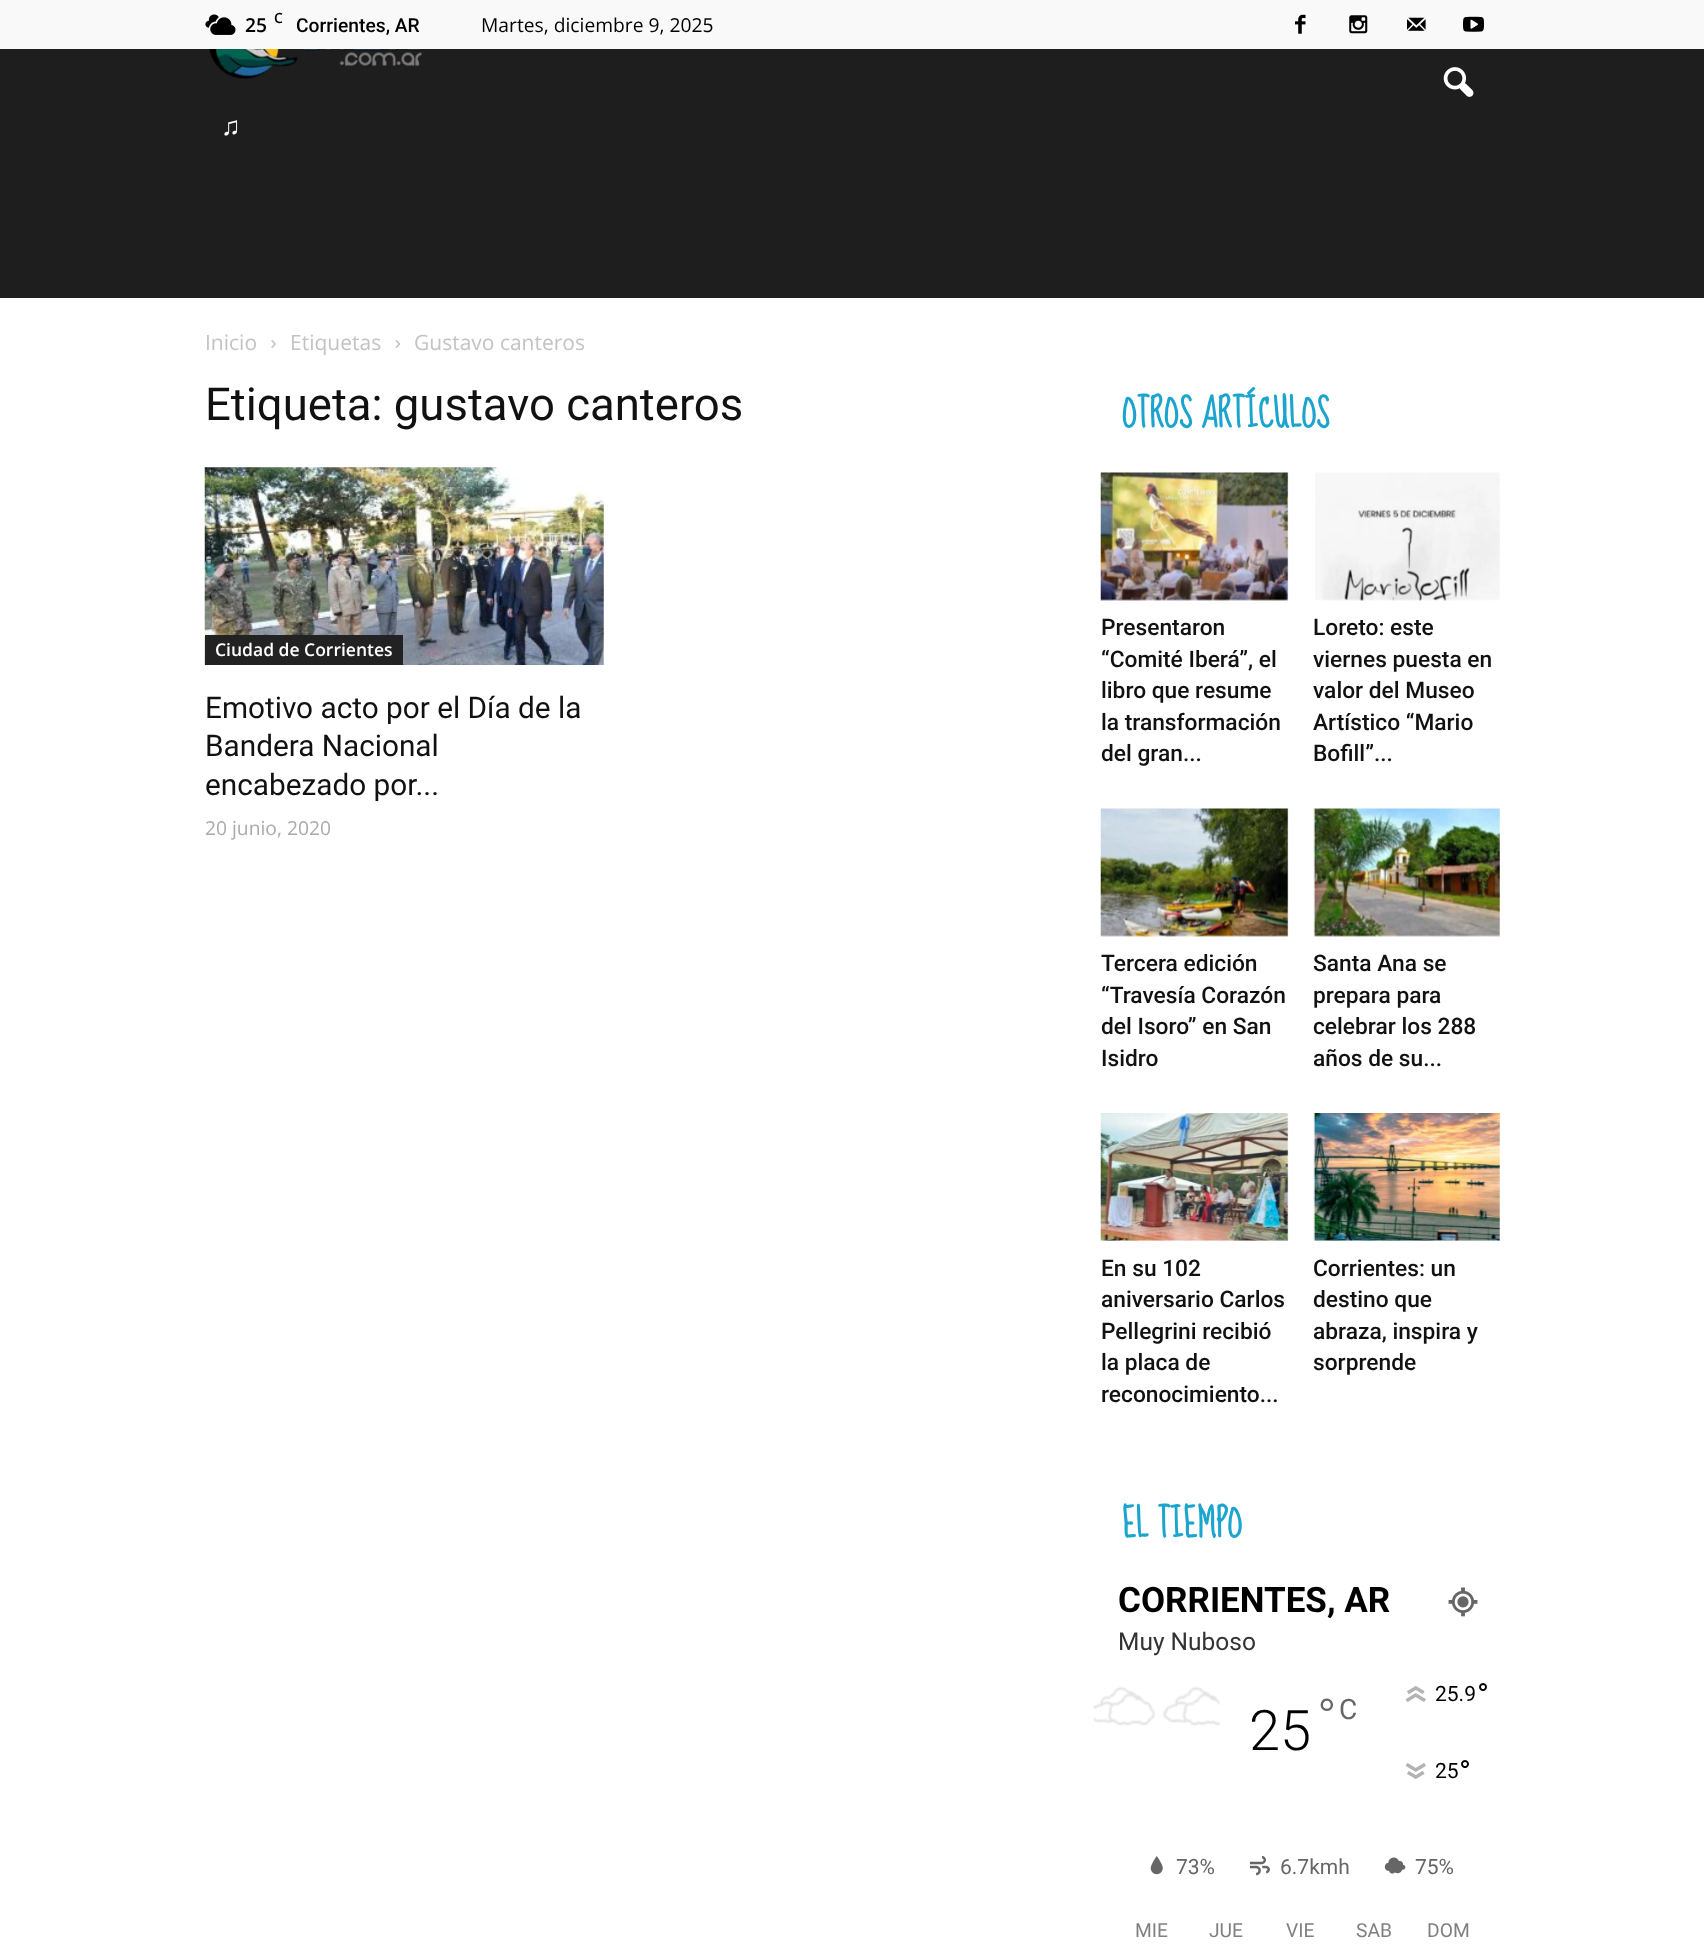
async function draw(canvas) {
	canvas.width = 1704;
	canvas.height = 1946;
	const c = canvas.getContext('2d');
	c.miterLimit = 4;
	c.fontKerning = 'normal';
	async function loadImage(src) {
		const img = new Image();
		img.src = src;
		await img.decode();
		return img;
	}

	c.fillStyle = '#fff';
	c.fillRect(0, 0, 1704, 1946);
	c.fillStyle = '#f9f9f9';
	c.fillRect(0, 0, 1704, 49);
	c.drawImage(await loadImage('img1.png'), 205, 14, 31, 21);
	c.font = '600 19.25px Open Sans';
	c.fillStyle = '#000';
	c.fillText('25', 245, 32);
	c.font = '600 14px Open Sans';
	c.fillText('C', 274, 23);
	c.font = '500 19.25px Roboto';
	c.fillText('Corrientes, AR', 296, 32);
	c.font = '19.25px Open Sans';
	c.fillText('Martes, diciembre 9, 2025', 481, 32);
	c.drawImage(await loadImage('img2.png'), 1295, 14, 11, 20);
	c.drawImage(await loadImage('img3.png'), 1349, 15, 19, 19);
	c.drawImage(await loadImage('img4.png'), 1407, 17, 19, 14);
	c.drawImage(await loadImage('img5.png'), 1463, 16, 21, 16);
	c.fillStyle = '#1e1e1e';
	c.fillRect(0, 49, 1704, 249);
	c.drawImage(await loadImage('img6.png'), 1443, 67, 31, 30);
	c.drawImage(await loadImage('img7.png'), 209, 49, 213, 30);
	c.font = '26px Liberation Serif';
	c.fillStyle = '#fff';
	c.fillText('♫', 221, 135);
	c.font = '21px Open Sans';
	c.fillStyle = '#c3c3c3';
	c.fillText('Inicio', 205, 350);
	c.drawImage(await loadImage('img8.png'), 271, 340, 5, 8);
	c.fillText('Etiquetas', 290, 350);
	c.drawImage(await loadImage('img9.png'), 395, 340, 6, 8);
	c.fillText('Gustavo canteros', 414, 350);
	c.font = '45.5px Roboto';
	c.fillStyle = '#111';
	c.fillText('Etiqueta: gustavo canteros', 205, 420);
	c.drawImage(await loadImage('img10.png'), 204, 467, 400, 198);
	c.fillStyle = '#222';
	c.fillRect(205, 635, 198, 30);
	c.font = '600 17.5px Open Sans';
	c.fillStyle = '#fff';
	c.fillText('Ciudad de Corrientes', 215, 656);
	c.font = '29.75px Roboto';
	c.fillStyle = '#111';
	for (const [text, x, y] of [
		['Emotivo acto por el Día de la', 205, 718],
		['Bandera Nacional', 205, 756],
		['encabezado por...', 205, 795],
	]) {
		c.fillText(text, x, y);
	}
	c.font = '19.25px Open Sans';
	c.fillStyle = '#aaa';
	c.fillText('20 junio, 2020', 205, 835);
	c.font = 'bold 35px Sue Ellen Francisco';
	c.fillStyle = '#1aa4ce';
	c.fillText('OTROS ARTÍCULOS', 1122, 427);
	c.drawImage(await loadImage('img11.png'), 1100, 472, 189, 129);
	c.font = '500 22.75px Roboto';
	c.fillStyle = '#111';
	for (const [text, x, y] of [
		['Presentaron', 1101, 635],
		['“Comité Iberá”, el', 1101, 667],
		['libro que resume', 1101, 698],
		['la transformación', 1101, 730],
		['del gran...', 1101, 761],
	]) {
		c.fillText(text, x, y);
	}
	c.drawImage(await loadImage('img12.png'), 1315, 472, 185, 129);
	for (const [text, x, y] of [
		['Loreto: este', 1313, 635],
		['viernes puesta en', 1313, 667],
		['valor del Museo', 1313, 698],
		['Artístico “Mario', 1313, 730],
		['Bofill”...', 1313, 761],
	]) {
		c.fillText(text, x, y);
	}
	c.drawImage(await loadImage('img13.png'), 1100, 808, 189, 129);
	for (const [text, x, y] of [
		['Tercera edición', 1101, 971],
		['“Travesía Corazón', 1101, 1003],
		['del Isoro” en San', 1101, 1034],
		['Isidro', 1101, 1066],
	]) {
		c.fillText(text, x, y);
	}
	c.drawImage(await loadImage('img14.png'), 1313, 808, 187, 129);
	for (const [text, x, y] of [
		['Santa Ana se', 1313, 971],
		['prepara para', 1313, 1003],
		['celebrar los 288', 1313, 1034],
		['años de su...', 1313, 1066],
	]) {
		c.fillText(text, x, y);
	}
	c.drawImage(await loadImage('img15.png'), 1100, 1113, 189, 128);
	for (const [text, x, y] of [
		['En su 102', 1101, 1276],
		['aniversario Carlos', 1101, 1307],
		['Pellegrini recibió', 1101, 1339],
		['la placa de', 1101, 1370],
		['reconocimiento...', 1101, 1402],
	]) {
		c.fillText(text, x, y);
	}
	c.drawImage(await loadImage('img16.png'), 1313, 1113, 187, 128);
	for (const [text, x, y] of [
		['Corrientes: un', 1313, 1276],
		['destino que', 1313, 1307],
		['abraza, inspira y', 1313, 1339],
		['sorprende', 1313, 1370],
	]) {
		c.fillText(text, x, y);
	}
	c.font = 'bold 35px Sue Ellen Francisco';
	c.fillStyle = '#1aa4ce';
	c.fillText('EL TIEMPO', 1122, 1537);
	c.font = 'bold 35px Roboto';
	c.fillStyle = '#000';
	c.fillText('CORRIENTES, AR', 1118, 1612);
	c.drawImage(await loadImage('img17.png'), 1448, 1587, 30, 30);
	c.font = '24.5px Roboto';
	c.fillStyle = '#333';
	c.fillText('Muy Nuboso', 1118, 1650);
	c.drawImage(await loadImage('img18.png'), 1093, 1686, 127, 40);
	c.font = '300 56px Roboto';
	c.fillStyle = '#000';
	c.fillText('25', 1249, 1750);
	c.font = '300 52px Roboto';
	c.fillStyle = '#666';
	c.fillText('°', 1317, 1736);
	c.font = '28px Roboto';
	c.fillText('C', 1339, 1719);
	c.drawImage(await loadImage('img19.png'), 1405, 1686, 21, 16);
	c.font = '21px Roboto';
	c.fillStyle = '#000';
	c.fillText('25.9', 1435, 1701);
	c.font = '32px Roboto';
	c.fillText('°', 1477, 1706);
	c.drawImage(await loadImage('img20.png'), 1405, 1763, 21, 16);
	c.font = '21px Roboto';
	c.fillText('25', 1435, 1778);
	c.font = '32px Roboto';
	c.fillText('°', 1459, 1783);
	c.drawImage(await loadImage('img21.png'), 1150, 1856, 13, 19);
	c.font = '21px Roboto';
	c.fillStyle = '#666';
	c.fillText('73%', 1176, 1874);
	c.drawImage(await loadImage('img22.png'), 1249, 1855, 21, 21);
	c.fillText('6.7kmh', 1280, 1874);
	c.drawImage(await loadImage('img23.png'), 1384, 1857, 22, 17);
	c.fillText('75%', 1415, 1874);
	c.font = '19.25px Roboto';
	c.fillStyle = '#808080';
	for (const [text, x, y] of [
		['MIE', 1135, 1937],
		['JUE', 1209, 1937],
		['VIE', 1286, 1937],
		['SAB', 1356, 1937],
		['DOM', 1427, 1937],
	]) {
		c.fillText(text, x, y);
	}
}

draw(document.querySelector('canvas'));
